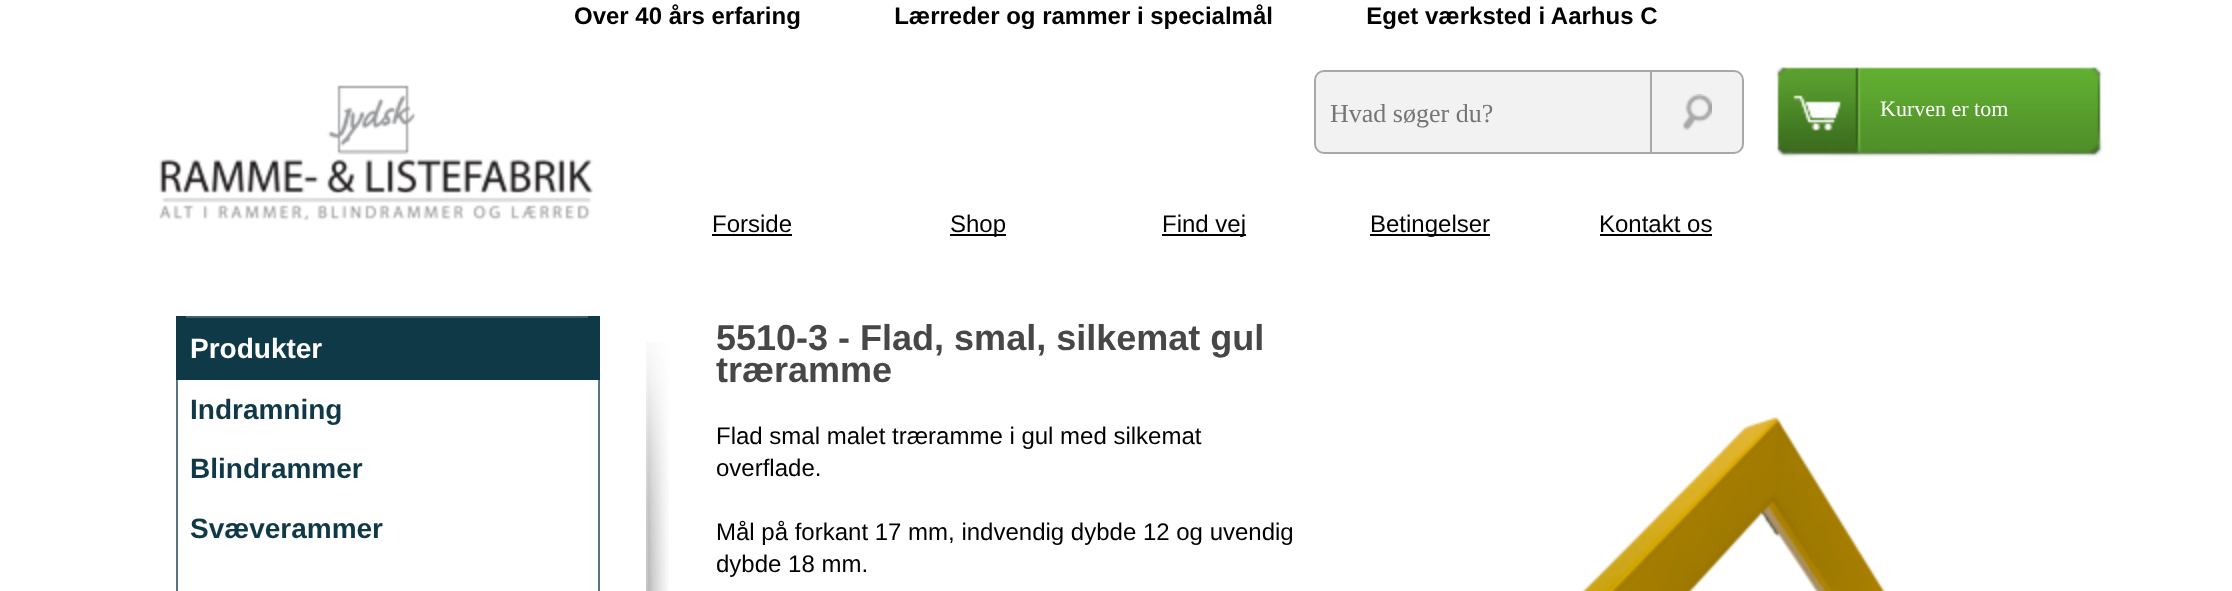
async function draw(canvas) {
	canvas.width = 2232;
	canvas.height = 591;
	const c = canvas.getContext('2d');
	c.miterLimit = 4;
	c.fontKerning = 'normal';
	async function loadImage(src) {
		const img = new Image();
		img.src = src;
		await img.decode();
		return img;
	}

	c.fillStyle = '#fff';
	c.fillRect(0, 0, 2232, 591);
	c.font = 'bold 24px Liberation Sans';
	c.fillStyle = '#000';
	c.fillText('Over 40 års erfaring              Lærreder og rammer i specialmål              Eget værksted i Aarhus C', 574, 24);
	c.drawImage(await loadImage('img1.png'), 159, 85, 434, 136);
	c.fillStyle = '#f2f2f2';
	c.beginPath();
	c.roundRect(1315, 71, 428, 82, 9);
	c.fill();
	c.strokeStyle = '#a8a8a8';
	c.lineWidth = 2;
	c.stroke();
	c.font = '26px Liberation Serif';
	c.fillStyle = '#757575';
	c.fillText('Hvad søger du?', 1330, 122);
	c.fillStyle = '#a8a8a8';
	c.fillRect(1650, 72, 2, 80);
	c.drawImage(await loadImage('img2.png'), 1682, 94, 30, 36);
	c.drawImage(await loadImage('img3.png'), 1775, 66, 328, 91);
	c.font = '22px Liberation Serif';
	c.fillStyle = '#fff';
	c.fillText('Kurven er tom', 1880, 116);
	c.font = '24px Liberation Sans';
	c.fillStyle = '#000';
	c.fillText('Forside', 712, 232);
	c.fillRect(712, 234, 80, 2);
	c.fillRect(950, 234, 56, 2);
	c.fillText('Shop', 950, 232);
	c.fillRect(1162, 234, 84, 2);
	c.fillText('Find vej', 1162, 232);
	c.fillRect(1370, 234, 120, 2);
	c.fillText('Betingelser', 1370, 232);
	c.fillText('Kontakt os', 1599, 232);
	for (const [x, y, w, h, color] of [
		[1600, 234, 112, 2, '#000'],
		[176, 316, 424, 64, '#103948'],
		[186, 316, 402, 2, '#40616d'],
	]) {
		c.fillStyle = color;
		c.fillRect(x, y, w, h);
	}
	c.font = 'bold 28px Liberation Sans';
	c.fillStyle = '#fff';
	c.fillText('Produkter', 190, 358);
	c.fillStyle = '#58747e';
	c.fillRect(598, 380, 2, 211);
	c.fillRect(176, 380, 2, 211);
	c.fillStyle = '#103948';
	for (const [text, x, y] of [
		['Indramning', 190, 419],
		['Blindrammer', 190, 478],
		['Svæverammer', 190, 538],
	]) {
		c.fillText(text, x, y);
	}
	c.drawImage(await loadImage('img4.png'), 646, 342, 23, 249);
	c.font = 'bold 36px Liberation Sans';
	c.fillStyle = '#474747';
	c.fillText('5510-3 - Flad, smal, silkemat gul', 716, 350);
	c.fillText('træramme', 716, 382);
	c.font = '24px Liberation Sans';
	c.fillStyle = '#000';
	for (const [text, x, y] of [
		['Flad smal malet træramme i gul med silkemat', 716, 444],
		['overflade.', 716, 476],
		['Mål på forkant 17 mm, indvendig dybde 12 og uvendig', 716, 540],
		['dybde 18 mm.', 716, 572],
	]) {
		c.fillText(text, x, y);
	}
	c.drawImage(await loadImage('img5.png'), 1581, 417, 305, 174);
}

draw(document.querySelector('canvas'));
